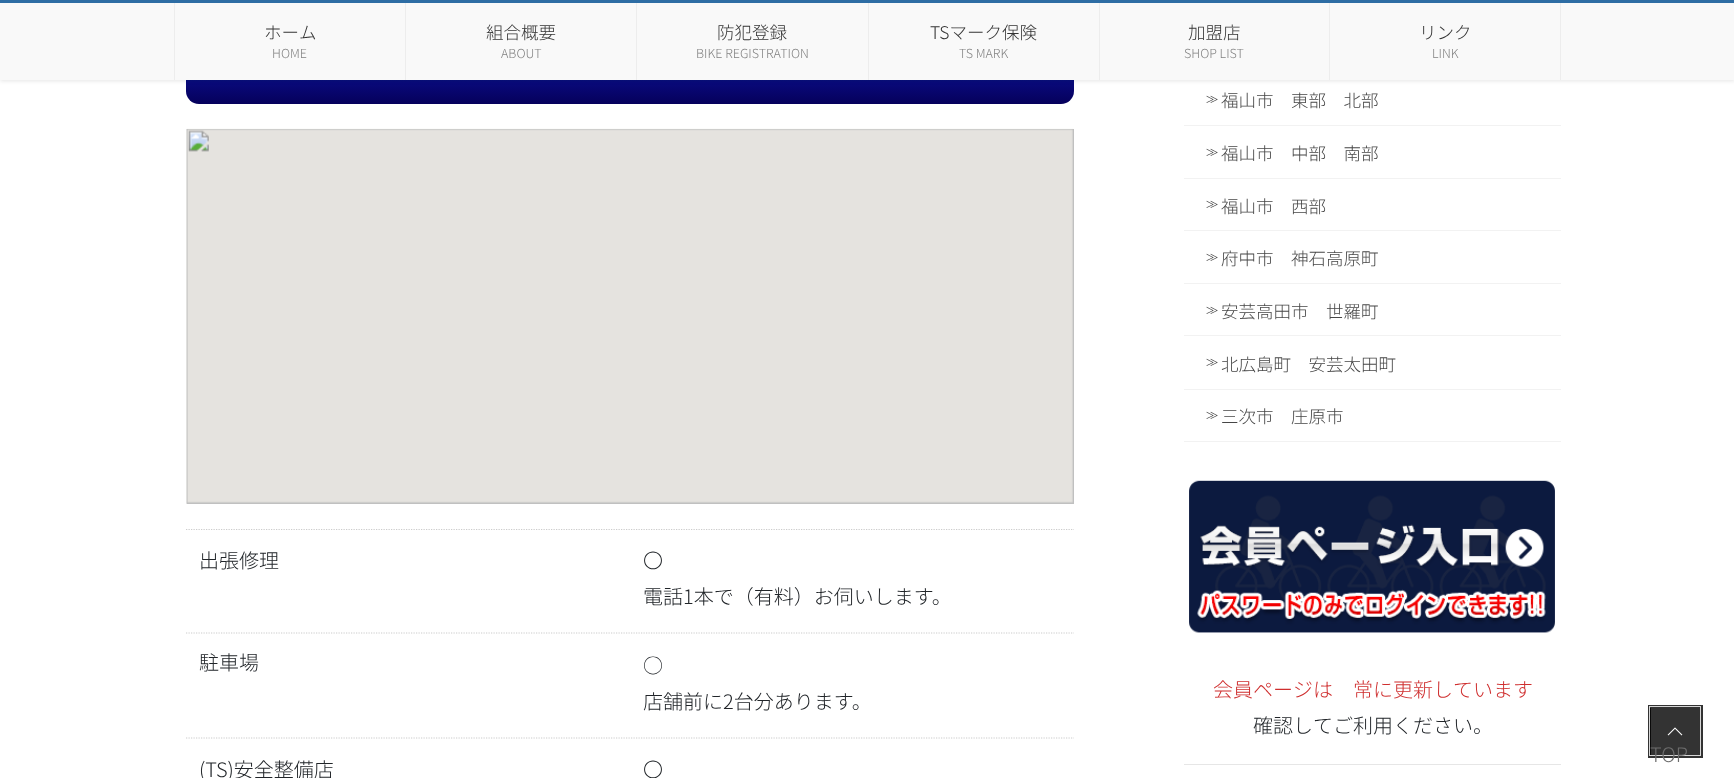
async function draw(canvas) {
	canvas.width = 1734;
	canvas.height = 778;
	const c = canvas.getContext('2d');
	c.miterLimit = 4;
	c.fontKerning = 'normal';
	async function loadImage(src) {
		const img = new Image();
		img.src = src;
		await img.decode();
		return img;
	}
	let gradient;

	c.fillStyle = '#fff';
	c.fillRect(0, 0, 1734, 778);
	gradient = c.createLinearGradient(630, 104, 630, 44);
	gradient.addColorStop(0, '#05005b');
	gradient.addColorStop(0.35, '#090979');
	gradient.addColorStop(1, '#005bbf');
	c.fillStyle = gradient;
	c.beginPath();
	c.roundRect(186, 44, 888, 60, 13);
	c.fill();
	c.fillStyle = '#0000001a';
	c.filter = 'blur(2px)';
	c.beginPath();
	c.rect(0, 1, 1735, 80);
	c.fill();
	c.filter = 'none';
	for (const [x, y, w, h, color] of [
		[0, 3, 1734, 77, '#f9f9f9'],
		[0, 0, 1734, 3, '#2e6da4'],
		[174, 3, 1, 77, '#ededed'],
	]) {
		c.fillStyle = color;
		c.fillRect(x, y, w, h);
	}
	c.font = '300 17.5px Noto Sans JP';
	c.fillStyle = '#333';
	c.fillText('ホーム', 264, 39);
	c.font = '300 12.5px Noto Sans JP';
	c.fillStyle = '#828282';
	c.fillText('HOME', 272, 58);
	c.fillStyle = '#ededed';
	c.fillRect(405, 3, 1, 77);
	c.font = '300 17.5px Noto Sans JP';
	c.fillStyle = '#333';
	c.fillText('組合概要', 486, 39);
	c.font = '300 12.5px Noto Sans JP';
	c.fillStyle = '#828282';
	c.fillText('ABOUT', 501, 58);
	c.fillStyle = '#ededed';
	c.fillRect(636, 3, 1, 77);
	c.font = '300 17.5px Noto Sans JP';
	c.fillStyle = '#333';
	c.fillText('防犯登録', 717, 39);
	c.font = '300 12.5px Noto Sans JP';
	c.fillStyle = '#828282';
	c.fillText('BIKE REGISTRATION', 696, 58);
	c.fillStyle = '#ededed';
	c.fillRect(868, 3, 1, 77);
	c.font = '300 17.5px Noto Sans JP';
	c.fillStyle = '#333';
	c.fillText('TSマーク保険', 930, 39);
	c.font = '300 12.5px Noto Sans JP';
	c.fillStyle = '#828282';
	c.fillText('TS MARK', 959, 58);
	c.fillStyle = '#ededed';
	c.fillRect(1099, 3, 1, 77);
	c.font = '300 17.5px Noto Sans JP';
	c.fillStyle = '#333';
	c.fillText('加盟店', 1188, 39);
	c.font = '300 12.5px Noto Sans JP';
	c.fillStyle = '#828282';
	c.fillText('SHOP LIST', 1184, 58);
	c.fillStyle = '#ededed';
	c.fillRect(1560, 3, 1, 77);
	c.fillRect(1329, 3, 1, 77);
	c.font = '300 17.5px Noto Sans JP';
	c.fillStyle = '#333';
	c.fillText('リンク', 1419, 39);
	c.font = '300 12.5px Noto Sans JP';
	c.fillStyle = '#828282';
	c.fillText('LINK', 1432, 58);
	c.drawImage(await loadImage('img1.png'), 186, 128, 888, 376);
	c.beginPath();
	c.moveTo(186, 529.5);
	c.lineTo(1074, 529.5);
	c.strokeStyle = '#ccc';
	c.lineWidth = 1.2;
	c.setLineDash([1.25, 1.25]);
	c.stroke();
	c.font = '300 20px Noto Sans JP';
	c.fillStyle = '#212529';
	for (const [text, x, y] of [
		['出張修理', 199, 568],
		['〇', 643, 568],
		['電話1本で（有料）お伺いします。', 643, 604],
	]) {
		c.fillText(text, x, y);
	}
	c.beginPath();
	c.moveTo(186, 633);
	c.lineTo(1074, 633);
	c.stroke();
	for (const [text, x, y] of [
		['駐車場', 199, 670],
		['○', 643, 673],
		['店舗前に2台分あります。', 643, 709],
	]) {
		c.fillText(text, x, y);
	}
	c.beginPath();
	c.moveTo(186, 738);
	c.lineTo(1074, 738);
	c.stroke();
	c.fillText('(TS)安全整備店', 199, 777);
	c.fillText('〇', 643, 777);
	c.fillStyle = '#f2f2f2';
	c.fillRect(1184, 125, 377, 1);
	c.font = '500 12.5px WenQuanYi Zen Hei';
	c.fillStyle = '#464646';
	c.fillText('≫', 1206, 103);
	c.font = '300 17.5px Noto Sans JP';
	c.fillText('福山市　東部　北部', 1221, 107);
	c.fillStyle = '#f2f2f2';
	c.fillRect(1184, 178, 377, 1);
	c.font = '500 12.5px WenQuanYi Zen Hei';
	c.fillStyle = '#464646';
	c.fillText('≫', 1206, 156);
	c.font = '300 17.5px Noto Sans JP';
	c.fillText('福山市　中部　南部', 1221, 160);
	c.fillStyle = '#f2f2f2';
	c.fillRect(1184, 230, 377, 1);
	c.font = '500 12.5px WenQuanYi Zen Hei';
	c.fillStyle = '#464646';
	c.fillText('≫', 1206, 208);
	c.font = '300 17.5px Noto Sans JP';
	c.fillText('福山市　西部', 1221, 213);
	c.fillStyle = '#f2f2f2';
	c.fillRect(1184, 283, 377, 1);
	c.font = '500 12.5px WenQuanYi Zen Hei';
	c.fillStyle = '#464646';
	c.fillText('≫', 1206, 261);
	c.font = '300 17.5px Noto Sans JP';
	c.fillText('府中市　神石高原町', 1221, 265);
	c.fillStyle = '#f2f2f2';
	c.fillRect(1184, 335, 377, 1);
	c.font = '500 12.5px WenQuanYi Zen Hei';
	c.fillStyle = '#464646';
	c.fillText('≫', 1206, 314);
	c.font = '300 17.5px Noto Sans JP';
	c.fillText('安芸高田市　世羅町', 1221, 318);
	c.fillStyle = '#f2f2f2';
	c.fillRect(1184, 389, 377, 1);
	c.font = '500 12.5px WenQuanYi Zen Hei';
	c.fillStyle = '#464646';
	c.fillText('≫', 1206, 366);
	c.font = '300 17.5px Noto Sans JP';
	c.fillText('北広島町　安芸太田町', 1221, 371);
	c.fillStyle = '#f2f2f2';
	c.fillRect(1184, 441, 377, 1);
	c.font = '500 12.5px WenQuanYi Zen Hei';
	c.fillStyle = '#464646';
	c.fillText('≫', 1206, 419);
	c.font = '300 17.5px Noto Sans JP';
	c.fillText('三次市　庄原市', 1221, 423);
	c.drawImage(await loadImage('img2.png'), 1189, 480, 366, 153);
	c.font = '300 20px Noto Sans JP';
	c.fillStyle = '#cf2e2e';
	c.fillText('会員ページは　常に更新しています', 1213, 697);
	c.fillStyle = '#212529';
	c.fillText('確認してご利用ください。', 1253, 733);
	c.fillStyle = '#e6e6e6';
	c.fillRect(1184, 764, 377, 1);
	c.strokeStyle = '#333';
	c.lineWidth = 3;
	c.setLineDash([]);
	c.strokeRect(1649.5, 706.5, 52, 50);
	c.strokeStyle = '#d6d6d6';
	c.lineWidth = 1;
	c.strokeRect(1649.5, 706.5, 51, 49);
	c.fillStyle = '#000000cc';
	c.fillRect(1650, 708, 50, 47);
	c.drawImage(await loadImage('img3.png'), 1667, 727, 16, 9);
	c.fillStyle = '#6c6c6c';
	c.fillText('TOP', 1650, 762);
}

draw(document.querySelector('canvas'));
